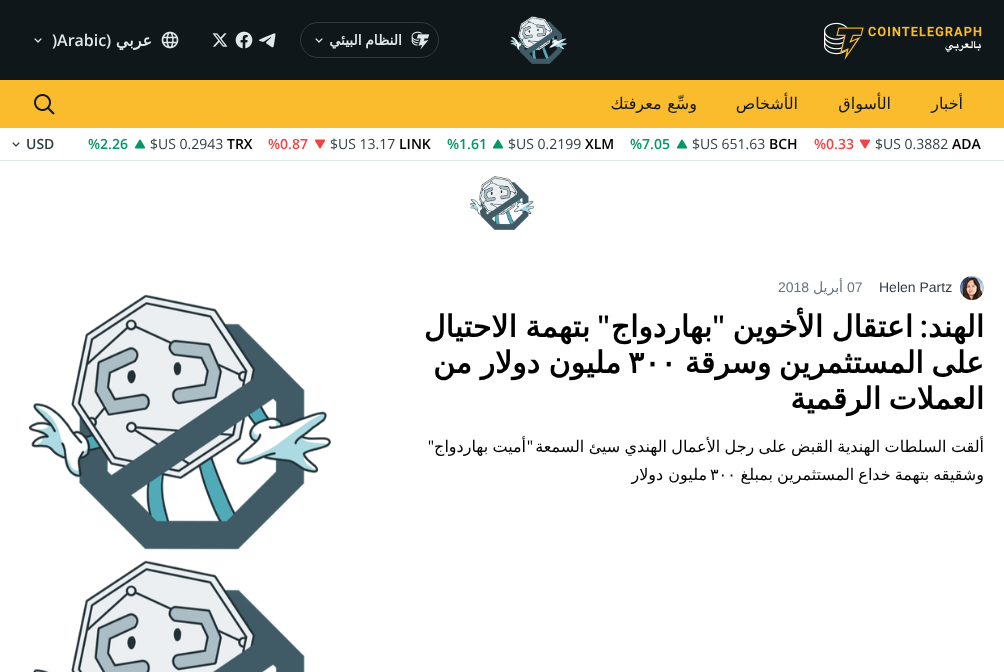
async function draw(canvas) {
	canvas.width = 1004;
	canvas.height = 672;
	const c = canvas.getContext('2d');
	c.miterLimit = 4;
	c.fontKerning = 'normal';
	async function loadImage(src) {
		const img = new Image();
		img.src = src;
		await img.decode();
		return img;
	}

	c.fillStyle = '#fff';
	c.fillRect(0, 0, 1004, 672);
	c.fillStyle = '#10171b';
	c.fillRect(0, 0, 1004, 80);
	c.drawImage(await loadImage('img1.png'), 824, 22, 158, 38);
	c.drawImage(await loadImage('img2.png'), 510, 16, 57, 48);
	c.beginPath();
	c.roundRect(300.5, 22.5, 138, 35, 17.5);
	c.strokeStyle = '#303d43';
	c.stroke();
	c.drawImage(await loadImage('img3.png'), 411, 31, 19, 19);
	c.wordSpacing = '-1px';
	c.direction = 'rtl';
	c.font = 'bold 14px DejaVu Sans';
	c.fillStyle = '#e1e8ea';
	c.fillText('النظام البيئي', 402, 45);
	c.drawImage(await loadImage('img4.png'), 315, 38, 8, 5);
	c.drawImage(await loadImage('img5.png'), 258, 33, 18, 15);
	c.drawImage(await loadImage('img6.png'), 235, 31, 18, 18);
	c.drawImage(await loadImage('img7.png'), 212, 33, 16, 14);
	c.drawImage(await loadImage('img8.png'), 161, 31, 18, 18);
	c.wordSpacing = '0px';
	c.font = 'bold 16px DejaVu Sans';
	c.fillText('عربي', 152, 46);
	c.font = '600 16px Open Sans';
	c.fillText('(', 111, 46);
	c.direction = 'ltr';
	c.fillText(')Arabic', 52, 46);
	c.drawImage(await loadImage('img4.png'), 34, 38, 8, 5);
	c.fillStyle = '#fabc2c';
	c.fillRect(0, 80, 1004, 48);
	c.letterSpacing = '-0.2px';
	c.direction = 'rtl';
	c.font = '16px DejaVu Sans';
	c.fillStyle = '#10171b';
	for (const [text, x, y] of [
		['أخبار', 963, 109],
		['الأسواق', 891, 109],
		['الأشخاص', 798, 109],
	]) {
		c.fillText(text, x, y);
	}
	c.wordSpacing = '1px';
	c.fillText('وسِّع معرفتك', 697, 109);
	c.drawImage(await loadImage('img9.png'), 34, 94, 21, 21);
	c.fillStyle = '#e1e8ea';
	c.fillRect(0, 160, 1004, 1);
	c.letterSpacing = '0px';
	c.wordSpacing = '0px';
	c.direction = 'ltr';
	c.font = '600 14px Open Sans';
	c.fillStyle = '#000';
	c.fillText('ADA', 952, 149);
	c.font = '14px Open Sans';
	c.fillStyle = '#303d43';
	c.fillText('$US 0.3882', 875, 149);
	c.drawImage(await loadImage('img10.png'), 859, 139, 12, 10);
	c.font = '600 14px Open Sans';
	c.fillStyle = '#ef4444';
	c.fillText('%0.33', 814, 149);
	c.fillStyle = '#000';
	c.fillText('BCH', 769, 149);
	c.font = '14px Open Sans';
	c.fillStyle = '#303d43';
	c.fillText('$US 651.63', 692, 149);
	c.drawImage(await loadImage('img11.png'), 676, 139, 12, 10);
	c.font = '600 14px Open Sans';
	c.fillStyle = '#059669';
	c.fillText('%7.05', 630, 149);
	c.fillStyle = '#000';
	c.fillText('XLM', 585, 149);
	c.font = '14px Open Sans';
	c.fillStyle = '#303d43';
	c.fillText('$US 0.2199', 508, 149);
	c.drawImage(await loadImage('img11.png'), 492, 139, 12, 10);
	c.font = '600 14px Open Sans';
	c.fillStyle = '#059669';
	c.fillText('%1.61', 447, 149);
	c.fillStyle = '#000';
	c.fillText('LINK', 399, 149);
	c.font = '14px Open Sans';
	c.fillStyle = '#303d43';
	c.fillText('$US 13.17', 330, 149);
	c.drawImage(await loadImage('img10.png'), 314, 139, 12, 10);
	c.font = '600 14px Open Sans';
	c.fillStyle = '#ef4444';
	c.fillText('%0.87', 268, 149);
	c.fillStyle = '#000';
	c.fillText('TRX', 227, 149);
	c.font = '14px Open Sans';
	c.fillStyle = '#303d43';
	c.fillText('$US 0.2943', 150, 149);
	c.drawImage(await loadImage('img11.png'), 134, 139, 12, 10);
	c.font = '600 14px Open Sans';
	c.fillStyle = '#059669';
	c.fillText('%2.26', 88, 149);
	c.fillStyle = '#303d43';
	c.fillText('USD', 26, 149);
	c.drawImage(await loadImage('img12.png'), 12, 142, 8, 5);
	c.drawImage(await loadImage('img13.png'), 470, 176, 64, 54);
	c.drawImage(await loadImage('img14.png'), 960, 276, 24, 24);
	c.font = '14px Liberation Sans';
	c.fillText('Helen Partz', 879, 292);
	c.fillStyle = '#66747c';
	c.fillText('07', 847, 292);
	c.direction = 'rtl';
	c.font = '14px DejaVu Sans';
	c.fillText('أبريل', 843, 292);
	c.direction = 'ltr';
	c.font = '14px Liberation Sans';
	c.fillText('2018', 778, 292);
	c.direction = 'rtl';
	c.font = 'bold 30px DejaVu Sans';
	c.fillStyle = '#000';
	c.fillText('الهند', 984, 337);
	c.font = '600 30px Open Sans';
	c.fillText(':', 928, 337);
	c.wordSpacing = '-1px';
	c.font = 'bold 30px DejaVu Sans';
	c.fillText('اعتقال الأخوين', 913, 337);
	c.wordSpacing = '0px';
	c.font = '600 30px Open Sans';
	c.fillText('"', 725, 337);
	c.font = 'bold 30px DejaVu Sans';
	c.fillText('بهاردواج', 712, 337);
	c.font = '600 30px Open Sans';
	c.fillText('"', 610, 337);
	c.wordSpacing = '-1px';
	c.font = 'bold 30px DejaVu Sans';
	c.fillText('بتهمة الاحتيال', 590, 337);
	c.wordSpacing = '-2px';
	c.fillText('على المستثمرين وسرقة', 984, 373);
	c.wordSpacing = '0px';
	c.direction = 'ltr';
	c.fillText('٣٠٠', 628, 373);
	c.wordSpacing = '-1px';
	c.direction = 'rtl';
	c.fillText('مليون دولار من', 621, 373);
	c.wordSpacing = '-2px';
	c.fillText('العملات الرقمية', 984, 409);
	c.wordSpacing = '-0.75px';
	c.font = '16px DejaVu Sans';
	c.fillText('ألقت السلطات الهندية القبض على رجل الأعمال الهندي سيئ السمعة', 984, 452);
	c.wordSpacing = '0px';
	c.font = '16px Open Sans';
	c.fillText('"', 533, 452);
	c.wordSpacing = '-0.75px';
	c.font = '16px DejaVu Sans';
	c.fillText('أميت بهاردواج', 526, 452);
	c.wordSpacing = '0px';
	c.font = '16px Open Sans';
	c.fillText('"', 434, 452);
	c.wordSpacing = '-1px';
	c.font = '16px DejaVu Sans';
	c.fillText('وشقيقه بتهمة خداع المستثمرين بمبلغ', 984, 480);
	c.wordSpacing = '0px';
	c.direction = 'ltr';
	c.fillText('٣٠٠', 710, 480);
	c.direction = 'rtl';
	c.fillText('مليون دولار', 707, 480);
	c.drawImage(await loadImage('img15.png'), 29, 294, 302, 256);
	c.drawImage(await loadImage('img16.png'), 33, 560, 272, 112);
}

draw(document.querySelector('canvas'));
